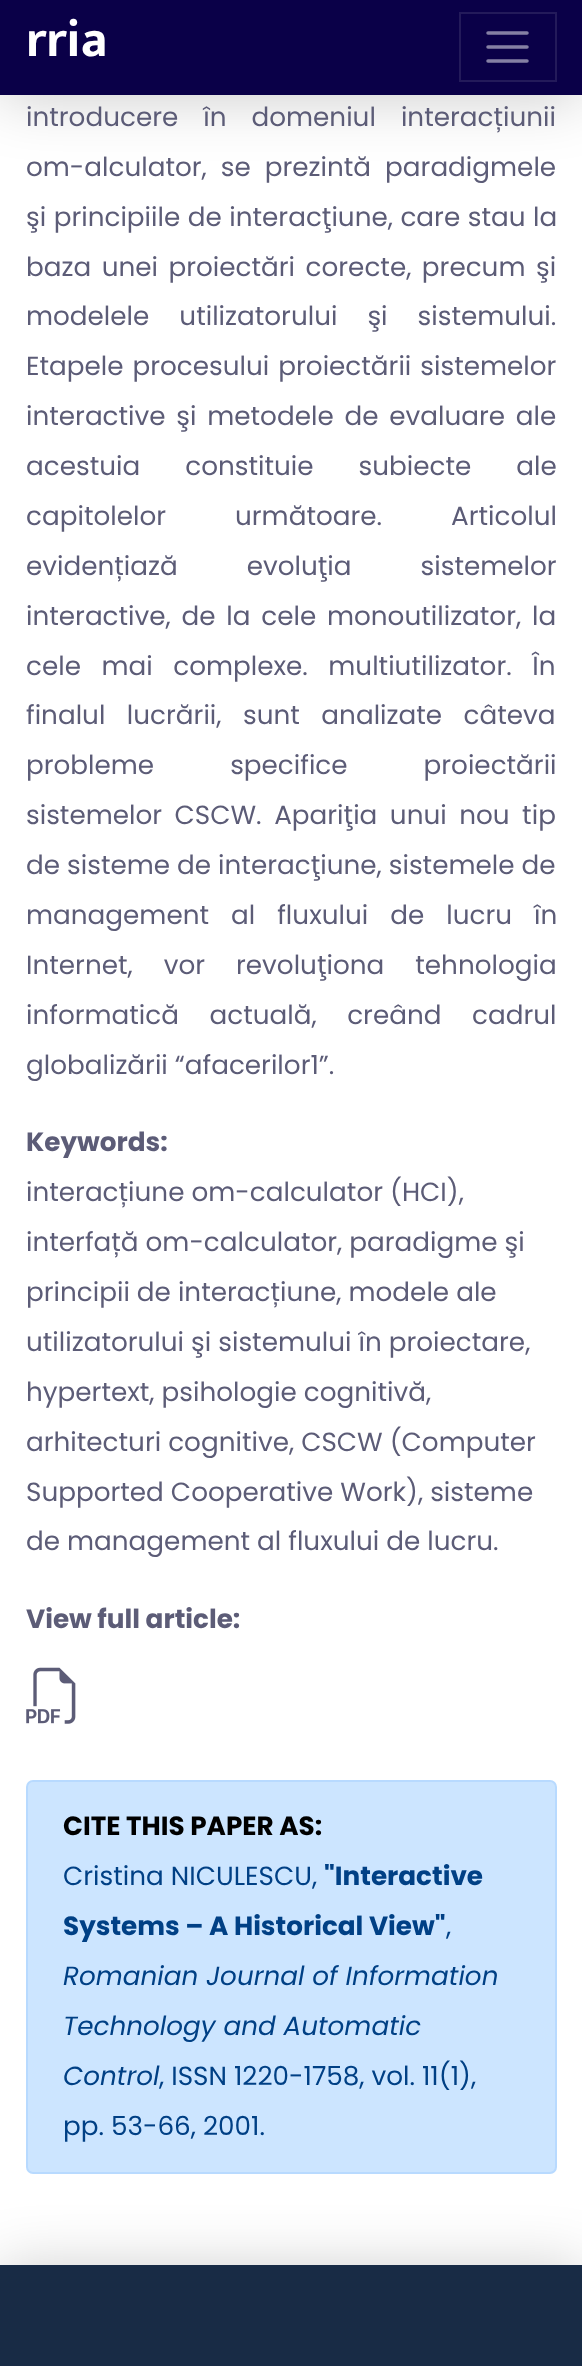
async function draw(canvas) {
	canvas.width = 582;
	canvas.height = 2366;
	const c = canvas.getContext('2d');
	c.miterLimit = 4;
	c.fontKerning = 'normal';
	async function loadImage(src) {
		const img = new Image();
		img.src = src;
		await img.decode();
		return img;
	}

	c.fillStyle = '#fff';
	c.fillRect(0, 0, 582, 2366);
	c.fillStyle = '#00000033';
	c.filter = 'blur(30.5px)';
	c.beginPath();
	c.rect(0, 4, 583, 94);
	c.fill();
	c.filter = 'none';
	c.fillStyle = '#0a0048';
	c.fillRect(0, 0, 582, 95);
	c.font = 'bold 52px Mukta';
	c.fillStyle = '#fff';
	c.fillText('rria', 26, 56);
	c.strokeStyle = '#231a5a';
	c.lineWidth = 2;
	c.strokeRect(460, 13, 96, 68);
	c.beginPath();
	c.moveTo(488, 33);
	c.lineTo(527, 33);
	c.moveTo(488, 47);
	c.lineTo(527, 47);
	c.moveTo(488, 61);
	c.lineTo(527, 61);
	c.strokeStyle = '#8580a4';
	c.lineWidth = 3.5;
	c.lineCap = 'round';
	c.stroke();
	c.wordSpacing = '18px';
	c.font = '26.25px Poppins';
	c.fillStyle = '#5c5c77';
	c.fillText('introducere în domeniul interacțiunii', 26, 126);
	c.wordSpacing = '7px';
	c.fillText('om-alculator, se prezintă paradigmele', 26, 176);
	c.wordSpacing = '0.5px';
	c.fillText('şi principiile de interacţiune, care stau la', 26, 226);
	c.wordSpacing = '3.5px';
	c.fillText('baza unei proiectări corecte, precum şi', 26, 276);
	c.wordSpacing = '23px';
	c.fillText('modelele utilizatorului şi sistemului.', 26, 325);
	c.wordSpacing = '2px';
	c.fillText('Etapele procesului proiectării sistemelor', 26, 375);
	c.wordSpacing = '3.75px';
	c.fillText('interactive şi metodele de evaluare ale', 26, 425);
	c.wordSpacing = '38px';
	c.fillText('acestuia constituie subiecte ale', 26, 475);
	c.wordSpacing = '62px';
	c.fillText('capitolelor următoare. Articolul', 26, 525);
	c.fillText('evidențiază evoluţia sistemelor', 26, 575);
	c.wordSpacing = '3.75px';
	c.fillText('interactive, de la cele monoutilizator, la', 26, 625);
	c.wordSpacing = '13.5px';
	c.fillText('cele mai complexe. multiutilizator. În', 26, 675);
	c.wordSpacing = '14.5px';
	c.fillText('finalul lucrării, sunt analizate câteva', 26, 724);
	c.wordSpacing = '69px';
	c.fillText('probleme specifice proiectării', 26, 774);
	c.wordSpacing = '5.5px';
	c.fillText('sistemelor CSCW. Apariţia unui nou tip', 26, 824);
	c.wordSpacing = '0px';
	c.fillText('de sisteme de interacţiune, sistemele de', 26, 874);
	c.wordSpacing = '15px';
	c.fillText('management al fluxului de lucru în', 26, 924);
	c.wordSpacing = '24px';
	c.fillText('Internet, vor revoluţiona tehnologia', 26, 974);
	c.wordSpacing = '23.5px';
	c.fillText('informatică actuală, creând cadrul', 26, 1024);
	c.wordSpacing = '0px';
	c.fillText('globalizării “afacerilor1”.', 26, 1074);
	c.font = 'bold 26.25px Poppins';
	c.fillText('Keywords:', 26, 1151);
	c.font = '26.25px Poppins';
	for (const [text, x, y] of [
		['interacțiune om-calculator (HCI),', 26, 1201],
		['interfață om-calculator, paradigme şi', 26, 1251],
		['principii de interacțiune, modele ale', 26, 1301],
		['utilizatorului şi sistemului în proiectare,', 26, 1351],
		['hypertext, psihologie cognitivă,', 26, 1401],
		['arhitecturi cognitive, CSCW (Computer', 26, 1451],
		['Supported Cooperative Work), sisteme', 26, 1501],
		['de management al fluxului de lucru.', 26, 1550],
	]) {
		c.fillText(text, x, y);
	}
	c.font = 'bold 26.25px Poppins';
	c.fillText('View full article:', 26, 1628);
	c.drawImage(await loadImage('img1.png'), 26, 1667, 50, 57);
	c.fillStyle = '#cce5ff';
	c.beginPath();
	c.roundRect(27, 1781, 529, 392, 6);
	c.fill();
	c.strokeStyle = '#b8daff';
	c.lineWidth = 2;
	c.stroke();
	c.fillStyle = '#000';
	c.fillText('CITE THIS PAPER AS:', 63, 1835);
	c.font = '26.25px Poppins';
	c.fillStyle = '#004085';
	c.fillText('Cristina NICULESCU,', 63, 1885);
	c.font = 'bold 26.25px Poppins';
	c.fillText('"Interactive', 324, 1885);
	c.fillText('Systems – A Historical View"', 63, 1935);
	c.font = '26.25px Poppins';
	c.fillText(',', 446, 1935);
	c.font = 'italic 26.25px Poppins';
	for (const [text, x, y] of [
		['Romanian Journal of Information', 63, 1985],
		['Technology and Automatic', 63, 2035],
		['Control', 63, 2085],
	]) {
		c.fillText(text, x, y);
	}
	c.font = '26.25px Poppins';
	c.fillText(', ISSN 1220-1758, vol. 11(1),', 159, 2085);
	c.fillText('pp. 53-66, 2001.', 63, 2135);
	c.fillStyle = '#00000033';
	c.filter = 'blur(30.5px)';
	c.beginPath();
	c.rect(0, 2268, 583, 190);
	c.fill();
	c.filter = 'none';
	c.fillStyle = '#182b45';
	c.fillRect(0, 2265, 582, 101);
}

draw(document.querySelector('canvas'));
